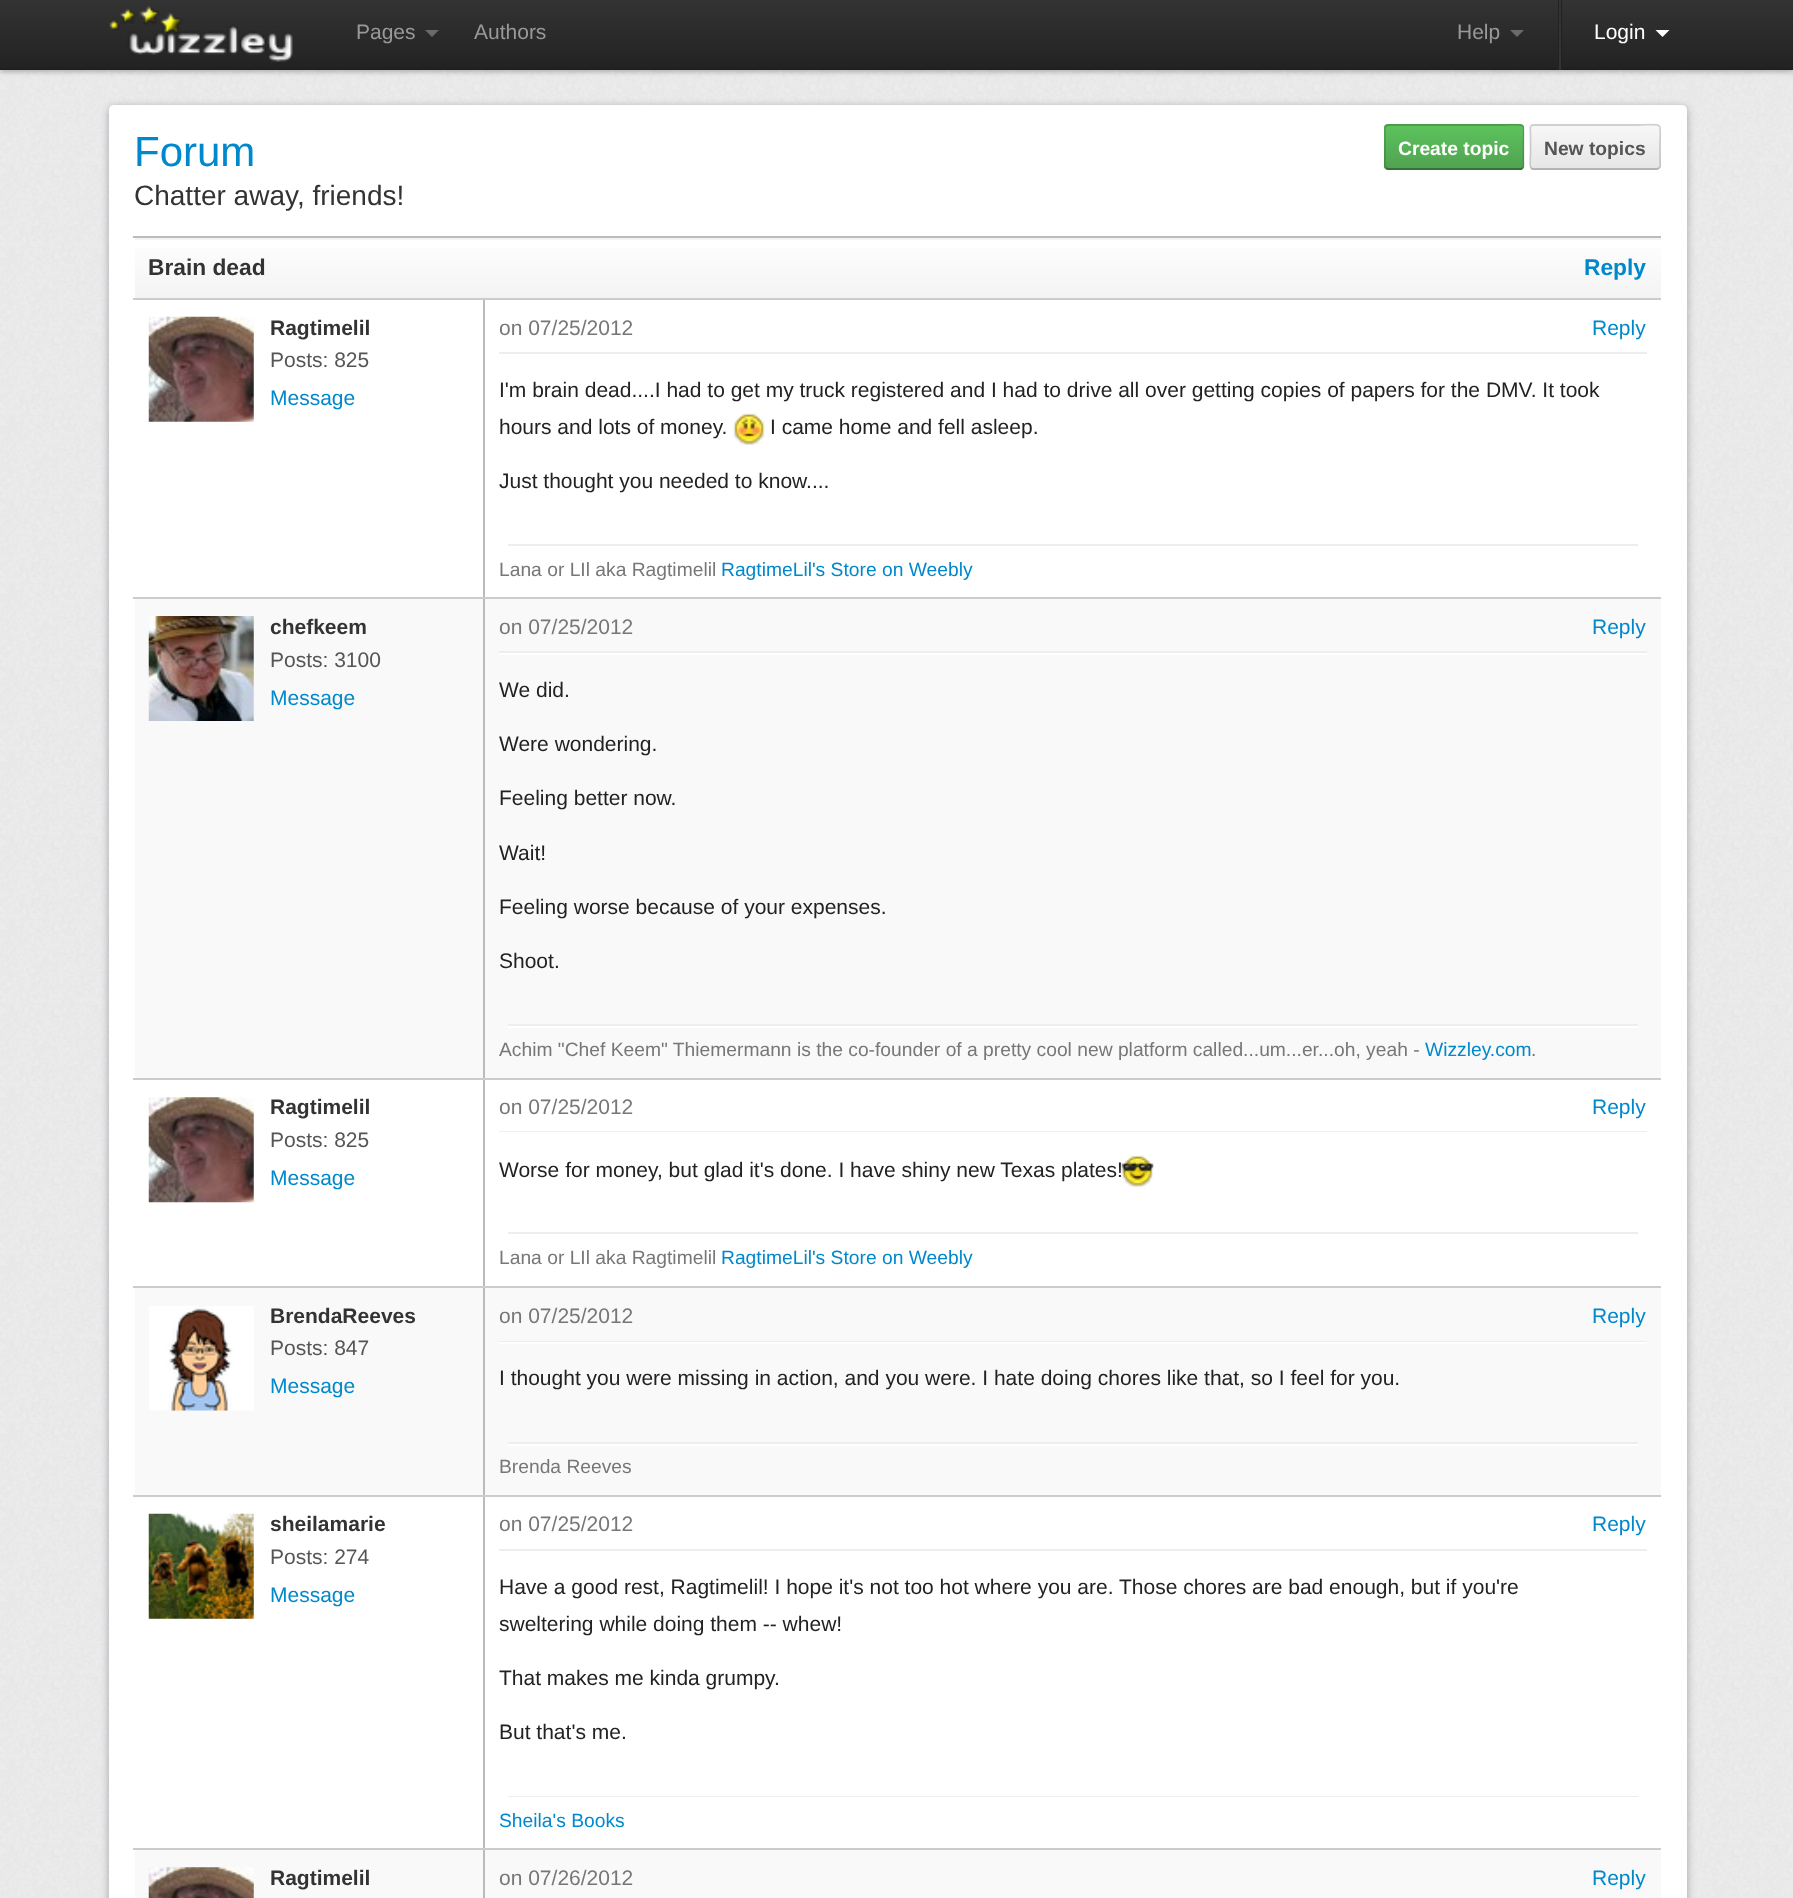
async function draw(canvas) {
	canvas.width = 1793;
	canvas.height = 1898;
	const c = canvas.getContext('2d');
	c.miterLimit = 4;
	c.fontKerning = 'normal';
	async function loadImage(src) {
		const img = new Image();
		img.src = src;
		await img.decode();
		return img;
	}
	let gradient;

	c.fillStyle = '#ededed';
	c.fillRect(0, 0, 1793, 1898);
	c.drawImage(await loadImage('img1.png'), 0, 70, 1793, 1828);
	c.fillStyle = '#00000040';
	c.filter = 'blur(2.5px)';
	c.beginPath();
	c.rect(0, 2, 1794, 70);
	c.fill();
	c.filter = 'none';
	gradient = c.createLinearGradient(897, 0, 897, 70);
	gradient.addColorStop(0, '#333');
	gradient.addColorStop(1, '#222');
	c.fillStyle = gradient;
	c.fillRect(0, 0, 1793, 68);
	c.fillStyle = '#1f1f1f';
	c.fillRect(0, 68, 1793, 2);
	c.drawImage(await loadImage('img2.png'), 109, 5, 184, 57);
	c.font = '21px Liberation Sans';
	c.fillStyle = '#999';
	c.fillText('Pages', 356, 39);
	c.fillStyle = '#6b6b6b';
	c.beginPath();
	c.moveTo(425, 30);
	c.lineTo(439, 30);
	c.lineTo(432, 37);
	c.closePath();
	c.fill();
	c.fillStyle = '#999';
	c.fillText('Authors', 474, 39);
	c.fillText('Help', 1457, 39);
	c.fillStyle = '#6b6b6b';
	c.beginPath();
	c.moveTo(1510, 30);
	c.lineTo(1524, 30);
	c.lineTo(1517, 37);
	c.closePath();
	c.fill();
	c.fillStyle = '#222';
	c.fillRect(1558, 0, 4, 70);
	c.fillStyle = '#333';
	c.fillRect(1559, 0, 2, 70);
	c.fillStyle = '#fff';
	c.fillText('Login', 1594, 39);
	c.beginPath();
	c.moveTo(1655.5, 30);
	c.lineTo(1669.5, 30);
	c.lineTo(1662.5, 37);
	c.closePath();
	c.fill();
	c.fillStyle = '#00001e4d';
	c.filter = 'blur(4.5px)';
	c.beginPath();
	c.roundRect(109, 107, 1578, 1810, 5);
	c.fill();
	c.filter = 'none';
	c.fillStyle = '#fff';
	c.beginPath();
	c.roundRect(109, 105, 1578, 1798, 5);
	c.fill();
	c.font = '42px Liberation Sans';
	c.fillStyle = '#08c';
	c.fillText('Forum', 134, 166);
	c.fillStyle = '#5bb75b';
	c.beginPath();
	c.roundRect(1384, 124, 140, 46, 4);
	c.fill();
	c.save();
	c.beginPath();
	c.roundRect(1384, 124, 140, 46, 4);
	c.clip();
	gradient = c.createLinearGradient(1454, 126, 1454, 168);
	gradient.addColorStop(0, '#5cc25c');
	gradient.addColorStop(1, '#51a351');
	c.fillStyle = gradient;
	c.fillRect(1384, 126, 140, 42);
	c.restore();
	c.beginPath();
	c.moveTo(1522.5, 168);
	c.lineTo(1521, 169);
	c.lineTo(1410, 169);
	c.lineTo(1388, 169);
	c.lineTo(1386, 168);
	c.strokeStyle = '#387038';
	c.lineWidth = 1.8;
	c.stroke();
	c.beginPath();
	c.moveTo(1386, 168);
	c.bezierCurveTo(1384, 166, 1385, 156, 1385, 153.5);
	c.lineTo(1385, 134);
	c.bezierCurveTo(1385, 132.5, 1383.5, 125, 1388, 125);
	c.lineTo(1498.5, 125);
	c.bezierCurveTo(1528.5, 125, 1523.5, 119, 1523.5, 147);
	c.lineTo(1523.5, 160);
	c.bezierCurveTo(1523.5, 160.5, 1524.5, 166.5, 1522.5, 168);
	c.strokeStyle = '#00000026';
	c.stroke();
	c.font = 'bold 19.25px Liberation Sans';
	c.fillStyle = '#fff';
	c.fillText('Create topic', 1398, 155);
	c.fillStyle = '#f5f5f5';
	c.beginPath();
	c.roundRect(1530, 124, 131, 46, 4);
	c.fill();
	c.save();
	c.beginPath();
	c.roundRect(1530, 124, 131, 46, 4);
	c.clip();
	gradient = c.createLinearGradient(1595, 126, 1595, 168);
	gradient.addColorStop(0, '#f7f7f7');
	gradient.addColorStop(1, '#e6e6e6');
	c.fillStyle = gradient;
	c.fillRect(1530, 126, 131, 42);
	c.restore();
	c.beginPath();
	c.moveTo(1659, 168);
	c.lineTo(1657, 169);
	c.lineTo(1532.5, 169);
	c.lineTo(1531, 168);
	c.strokeStyle = '#b3b3b3';
	c.stroke();
	c.beginPath();
	c.moveTo(1531, 168);
	c.bezierCurveTo(1529, 166, 1530.5, 156, 1530.5, 153.5);
	c.lineTo(1530.5, 134);
	c.bezierCurveTo(1530.5, 132.5, 1529, 125, 1533, 125);
	c.lineTo(1636.5, 125);
	c.bezierCurveTo(1665, 125, 1660, 119.5, 1660, 147);
	c.lineTo(1660, 160);
	c.bezierCurveTo(1660, 160.5, 1661, 166.5, 1659, 168);
	c.strokeStyle = '#00000026';
	c.stroke();
	c.fillStyle = '#555';
	c.fillText('New topics', 1544, 155);
	c.font = '28px Liberation Sans';
	c.fillStyle = '#333';
	c.fillText('Chatter away, friends!', 134, 205);
	gradient = c.createLinearGradient(898, 182, 898, 240);
	gradient.addColorStop(0, '#fefefe');
	gradient.addColorStop(1, '#f3f3f3');
	c.fillStyle = gradient;
	c.fillRect(135, 238, 1526, 2);
	gradient = c.createLinearGradient(898, 240, 898, 298);
	gradient.addColorStop(0, '#fefefe');
	gradient.addColorStop(1, '#f3f3f3');
	c.fillStyle = gradient;
	c.fillRect(135, 248, 1526, 50);
	for (const [x, y, w, h, color] of [
		[133, 236, 1528, 2, '#bbb'],
		[135, 599, 1526, 479, '#f9f9f9'],
		[135, 1288, 1526, 207, '#f9f9f9'],
		[135, 1850, 1526, 48, '#f9f9f9'],
		[483, 1848, 2, 50, '#bbb'],
		[483, 1848, 1178, 2, '#ccc'],
		[483, 1495, 2, 355, '#bbb'],
		[483, 1495, 1178, 2, '#ccc'],
		[483, 1286, 2, 210, '#bbb'],
		[483, 1286, 1178, 2, '#ccc'],
		[483, 1078, 2, 210, '#bbb'],
		[483, 1078, 1178, 2, '#ccc'],
		[483, 597, 2, 483, '#bbb'],
		[483, 597, 1178, 2, '#ccc'],
		[483, 298, 2, 301, '#bbb'],
		[133, 298, 1528, 2, '#ccc'],
	]) {
		c.fillStyle = color;
		c.fillRect(x, y, w, h);
	}
	c.font = 'bold 22.75px Liberation Sans';
	c.fillStyle = '#333';
	c.fillText('Brain dead', 148, 275);
	c.fillStyle = '#08c';
	c.fillText('Reply', 1584, 275);
	c.fillStyle = '#ccc';
	c.fillRect(133, 597, 352, 2);
	c.drawImage(await loadImage('img3.png'), 148, 316, 106, 106);
	c.font = 'bold 21px Liberation Sans';
	c.fillStyle = '#333';
	c.fillText('Ragtimelil', 270, 335);
	c.font = '21px Liberation Sans';
	c.fillStyle = '#555';
	c.fillText('Posts: 825', 270, 367);
	c.fillStyle = '#08c';
	c.fillText('Message', 270, 405);
	c.fillStyle = '#777';
	c.fillText('on 07/25/2012', 499, 335);
	c.fillStyle = '#08c';
	c.fillText('Reply', 1592, 335);
	c.fillStyle = '#eee';
	c.fillRect(499, 352, 1148, 2);
	c.fillStyle = '#222';
	c.fillText('I\'m brain dead....I had to get my truck registered and I had to drive all over getting copies of papers for the DMV. It took', 499, 397);
	c.fillText('hours and lots of money.', 499, 434);
	c.drawImage(await loadImage('img4.png'), 733, 413, 32, 32);
	c.fillText('I came home and fell asleep.', 770, 434);
	c.fillText('Just thought you needed to know....', 499, 488);
	c.fillStyle = '#eee';
	c.fillRect(508, 544, 1130, 2);
	c.font = '19.25px Liberation Sans';
	c.fillStyle = '#777';
	c.fillText('Lana or LIl aka Ragtimelil', 499, 576);
	c.fillStyle = '#08c';
	c.fillText('RagtimeLil\'s Store on Weebly', 721, 576);
	c.fillStyle = '#ccc';
	c.fillRect(133, 1078, 352, 2);
	c.drawImage(await loadImage('img5.png'), 148, 616, 106, 105);
	c.font = 'bold 21px Liberation Sans';
	c.fillStyle = '#333';
	c.fillText('chefkeem', 270, 634);
	c.font = '21px Liberation Sans';
	c.fillStyle = '#555';
	c.fillText('Posts: 3100', 270, 667);
	c.fillStyle = '#08c';
	c.fillText('Message', 270, 705);
	c.fillStyle = '#777';
	c.fillText('on 07/25/2012', 499, 634);
	c.fillStyle = '#08c';
	c.fillText('Reply', 1592, 634);
	c.fillStyle = '#eee';
	c.fillRect(499, 651, 1148, 2);
	c.fillStyle = '#fff';
	c.fillRect(499, 653, 1148, 2);
	c.fillStyle = '#222';
	for (const [text, x, y] of [
		['We did.', 499, 697],
		['Were wondering.', 499, 751],
		['Feeling better now.', 499, 805],
		['Wait!', 499, 860],
		['Feeling worse because of your expenses.', 499, 914],
		['Shoot.', 499, 968],
	]) {
		c.fillText(text, x, y);
	}
	c.fillStyle = '#eee';
	c.fillRect(508, 1024, 1130, 2);
	c.fillStyle = '#fff';
	c.fillRect(508, 1026, 1130, 2);
	c.font = '19.25px Liberation Sans';
	c.fillStyle = '#777';
	c.fillText('Achim "Chef Keem" Thiemermann is the co-founder of a pretty cool new platform called...um...er...oh, yeah -', 499, 1056);
	c.fillStyle = '#08c';
	c.fillText('Wizzley.com', 1425, 1056);
	c.fillStyle = '#777';
	c.fillText('.', 1531, 1056);
	c.fillStyle = '#ccc';
	c.fillRect(133, 1286, 352, 2);
	c.drawImage(await loadImage('img6.png'), 148, 1097, 106, 106);
	c.font = 'bold 21px Liberation Sans';
	c.fillStyle = '#333';
	c.fillText('Ragtimelil', 270, 1114);
	c.font = '21px Liberation Sans';
	c.fillStyle = '#555';
	c.fillText('Posts: 825', 270, 1147);
	c.fillStyle = '#08c';
	c.fillText('Message', 270, 1185);
	c.fillStyle = '#777';
	c.fillText('on 07/25/2012', 499, 1114);
	c.fillStyle = '#08c';
	c.fillText('Reply', 1592, 1114);
	c.fillStyle = '#eee';
	c.fillRect(499, 1131, 1148, 1);
	c.fillStyle = '#222';
	c.fillText('Worse for money, but glad it\'s done. I have shiny new Texas plates!', 499, 1177);
	c.drawImage(await loadImage('img7.png'), 1121, 1155, 33, 32);
	c.fillStyle = '#eee';
	c.fillRect(508, 1232, 1130, 2);
	c.font = '19.25px Liberation Sans';
	c.fillStyle = '#777';
	c.fillText('Lana or LIl aka Ragtimelil', 499, 1264);
	c.fillStyle = '#08c';
	c.fillText('RagtimeLil\'s Store on Weebly', 721, 1264);
	c.fillStyle = '#ccc';
	c.fillRect(133, 1495, 352, 2);
	c.drawImage(await loadImage('img8.png'), 149, 1306, 105, 105);
	c.font = 'bold 21px Liberation Sans';
	c.fillStyle = '#333';
	c.fillText('BrendaReeves', 270, 1323);
	c.font = '21px Liberation Sans';
	c.fillStyle = '#555';
	c.fillText('Posts: 847', 270, 1355);
	c.fillStyle = '#08c';
	c.fillText('Message', 270, 1393);
	c.fillStyle = '#777';
	c.fillText('on 07/25/2012', 499, 1323);
	c.fillStyle = '#08c';
	c.fillText('Reply', 1592, 1323);
	c.fillStyle = '#eee';
	c.fillRect(499, 1341, 1148, 1);
	c.fillStyle = '#fff';
	c.fillRect(499, 1342, 1148, 2);
	c.fillStyle = '#222';
	c.fillText('I thought you were missing in action, and you were. I hate doing chores like that, so I feel for you.', 499, 1385);
	c.fillStyle = '#eee';
	c.fillRect(508, 1442, 1130, 2);
	c.fillStyle = '#fff';
	c.fillRect(508, 1444, 1130, 2);
	c.font = '19.25px Liberation Sans';
	c.fillStyle = '#777';
	c.fillText('Brenda Reeves', 499, 1473);
	c.fillStyle = '#ccc';
	c.fillRect(133, 1848, 352, 2);
	c.drawImage(await loadImage('img9.png'), 148, 1513, 106, 106);
	c.font = 'bold 21px Liberation Sans';
	c.fillStyle = '#333';
	c.fillText('sheilamarie', 270, 1531);
	c.font = '21px Liberation Sans';
	c.fillStyle = '#555';
	c.fillText('Posts: 274', 270, 1564);
	c.fillStyle = '#08c';
	c.fillText('Message', 270, 1602);
	c.fillStyle = '#777';
	c.fillText('on 07/25/2012', 499, 1531);
	c.fillStyle = '#08c';
	c.fillText('Reply', 1592, 1531);
	c.fillStyle = '#eee';
	c.fillRect(499, 1549, 1148, 2);
	c.fillStyle = '#222';
	for (const [text, x, y] of [
		['Have a good rest, Ragtimelil! I hope it\'s not too hot where you are. Those chores are bad enough, but if you\'re', 499, 1594],
		['sweltering while doing them -- whew!', 499, 1631],
		['That makes me kinda grumpy.', 499, 1685],
		['But that\'s me.', 499, 1739],
	]) {
		c.fillText(text, x, y);
	}
	c.fillStyle = '#eee';
	c.fillRect(508, 1796, 1130, 1);
	c.font = '19.25px Liberation Sans';
	c.fillStyle = '#08c';
	c.fillText('Sheila\'s Books', 499, 1827);
	c.drawImage(await loadImage('img10.png'), 148, 1867, 106, 31);
	c.font = 'bold 21px Liberation Sans';
	c.fillStyle = '#333';
	c.fillText('Ragtimelil', 270, 1885);
	c.font = '21px Liberation Sans';
	c.fillStyle = '#777';
	c.fillText('on 07/26/2012', 499, 1885);
	c.fillStyle = '#08c';
	c.fillText('Reply', 1592, 1885);
}

draw(document.querySelector('canvas'));
